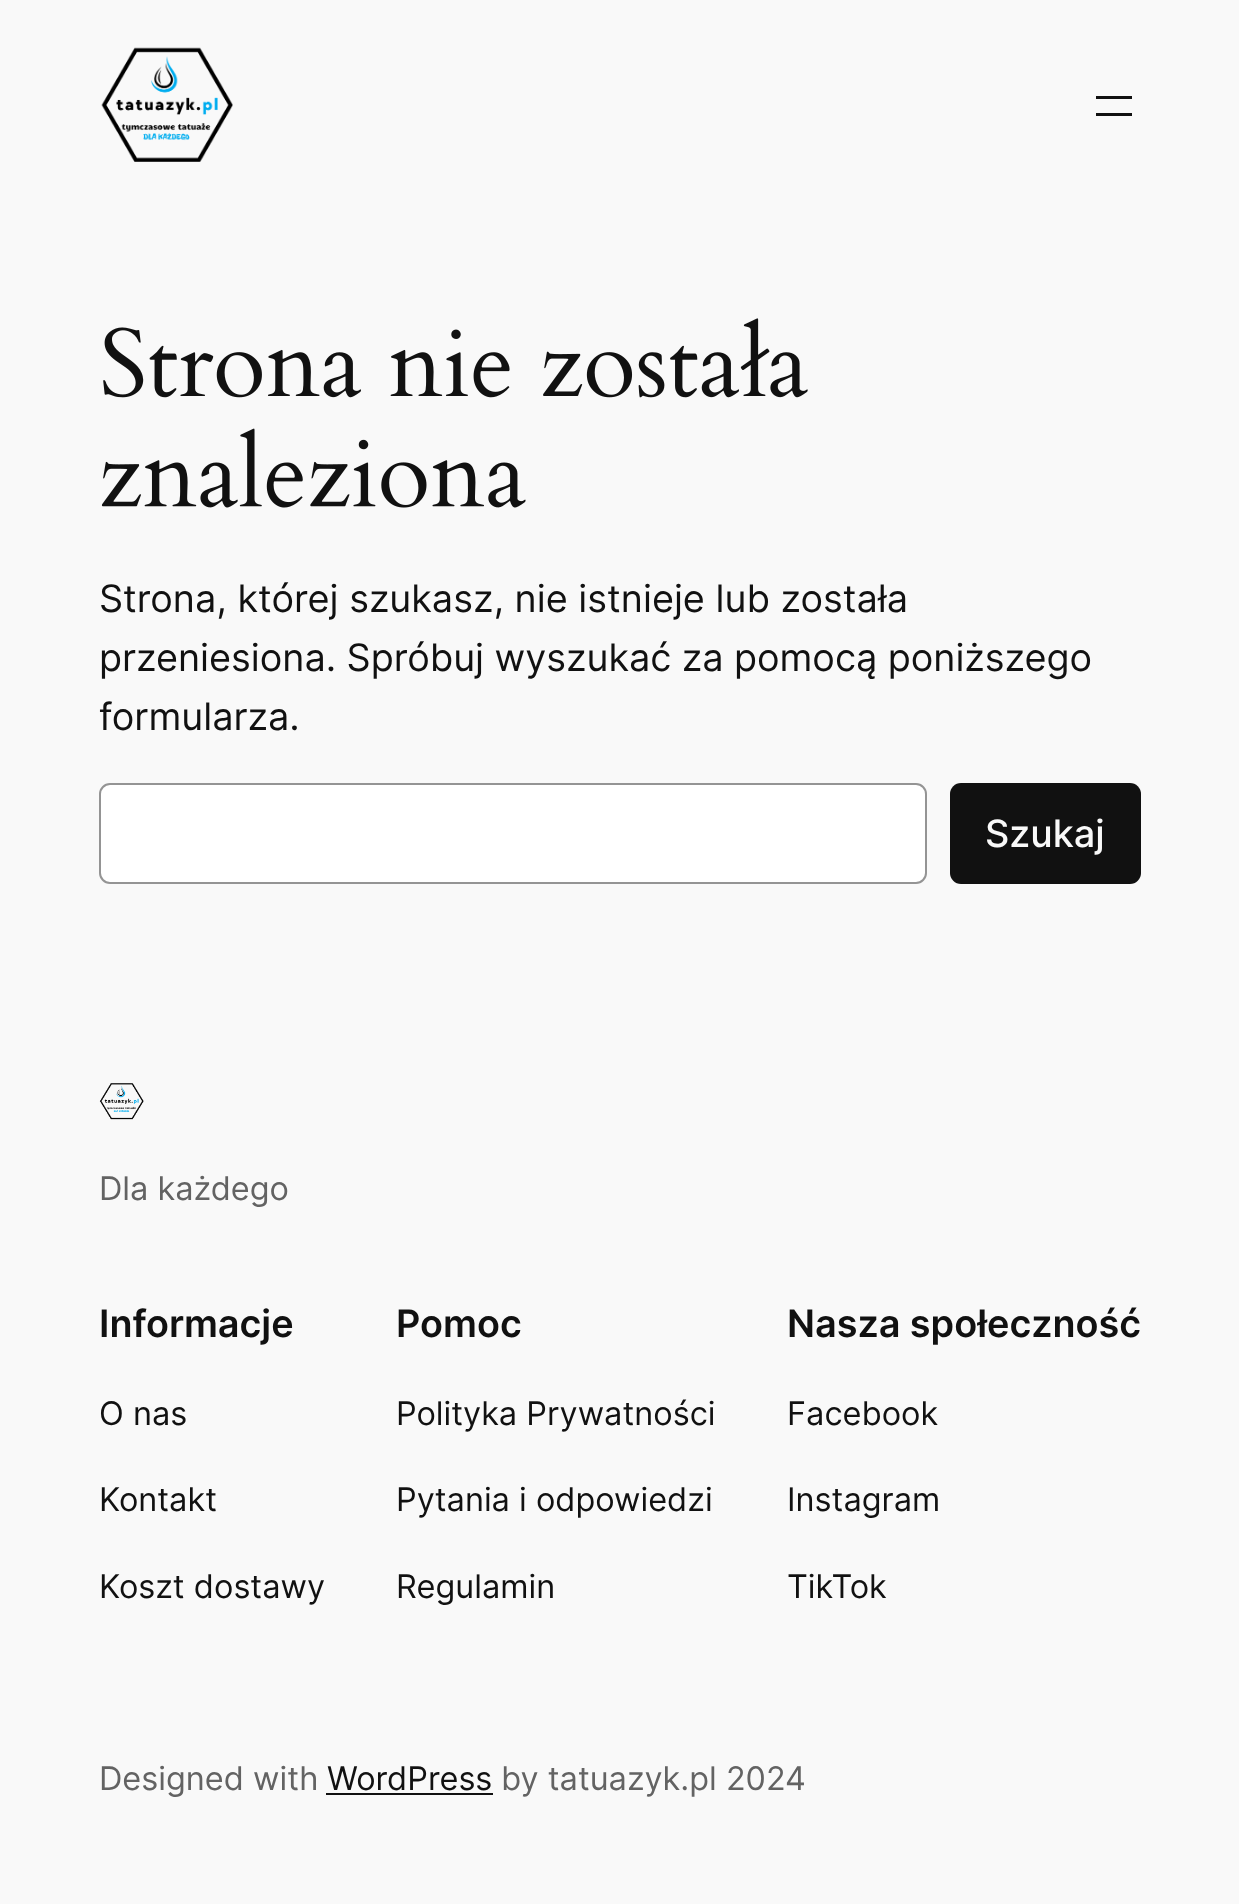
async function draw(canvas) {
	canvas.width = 1239;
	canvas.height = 1904;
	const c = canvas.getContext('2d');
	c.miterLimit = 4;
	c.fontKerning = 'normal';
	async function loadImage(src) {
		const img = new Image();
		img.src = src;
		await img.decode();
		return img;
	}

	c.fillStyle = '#f9f9f9';
	c.fillRect(0, 0, 1239, 1904);
	c.drawImage(await loadImage('img1.png'), 101, 47, 132, 115);
	c.fillStyle = '#111';
	c.fillRect(1096, 96, 36, 3);
	c.fillRect(1096, 113, 36, 3);
	c.drawImage(await loadImage('img2.png'), 103, 318, 705, 80);
	c.drawImage(await loadImage('img3.png'), 101, 428, 425, 80);
	c.font = '37.8px Inter';
	c.fillText('Strona, której szukasz, nie istnieje lub została', 99, 612);
	c.wordSpacing = '-0.25px';
	c.fillText('przeniesiona. Spróbuj wyszukać za pomocą poniższego', 99, 671);
	c.wordSpacing = '0px';
	c.fillText('formularza.', 99, 730);
	c.fillStyle = '#fff';
	c.beginPath();
	c.roundRect(100, 784, 826, 99, 10);
	c.fill();
	c.strokeStyle = '#949494';
	c.lineWidth = 2;
	c.stroke();
	c.fillStyle = '#111';
	c.beginPath();
	c.roundRect(950, 783, 191, 101, 11);
	c.fill();
	c.font = '500 37.8px Inter';
	c.fillStyle = '#f9f9f9';
	c.fillText('Szukaj', 985, 847);
	c.drawImage(await loadImage('img4.png'), 99, 1083, 45, 37);
	c.font = '32.5px Inter';
	c.fillStyle = '#636363';
	c.fillText('Dla każdego', 99, 1200);
	c.font = '600 37.8px Inter';
	c.fillStyle = '#111';
	c.fillText('Informacje', 99, 1337);
	c.font = '32.5px Inter';
	for (const [text, x, y] of [
		['O nas', 99, 1425],
		['Kontakt', 99, 1511],
		['Koszt dostawy', 99, 1598],
	]) {
		c.fillText(text, x, y);
	}
	c.font = '600 37.8px Inter';
	c.fillText('Pomoc', 396, 1337);
	c.font = '32.5px Inter';
	for (const [text, x, y] of [
		['Polityka Prywatności', 396, 1425],
		['Pytania i odpowiedzi', 396, 1511],
		['Regulamin', 396, 1598],
	]) {
		c.fillText(text, x, y);
	}
	c.font = '600 37.8px Inter';
	c.fillText('Nasza społeczność', 787, 1337);
	c.font = '32.5px Inter';
	for (const [text, x, y] of [
		['Facebook', 787, 1425],
		['Instagram', 787, 1511],
		['TikTok', 787, 1598],
	]) {
		c.fillText(text, x, y);
	}
	c.fillStyle = '#636363';
	c.fillText('Designed with', 99, 1790);
	c.fillStyle = '#111';
	c.fillText('WordPress', 327, 1790);
	c.fillRect(326, 1793, 167, 2);
	c.fillStyle = '#636363';
	c.fillText('by tatuazyk.pl 2024', 501, 1790);
}

draw(document.querySelector('canvas'));
